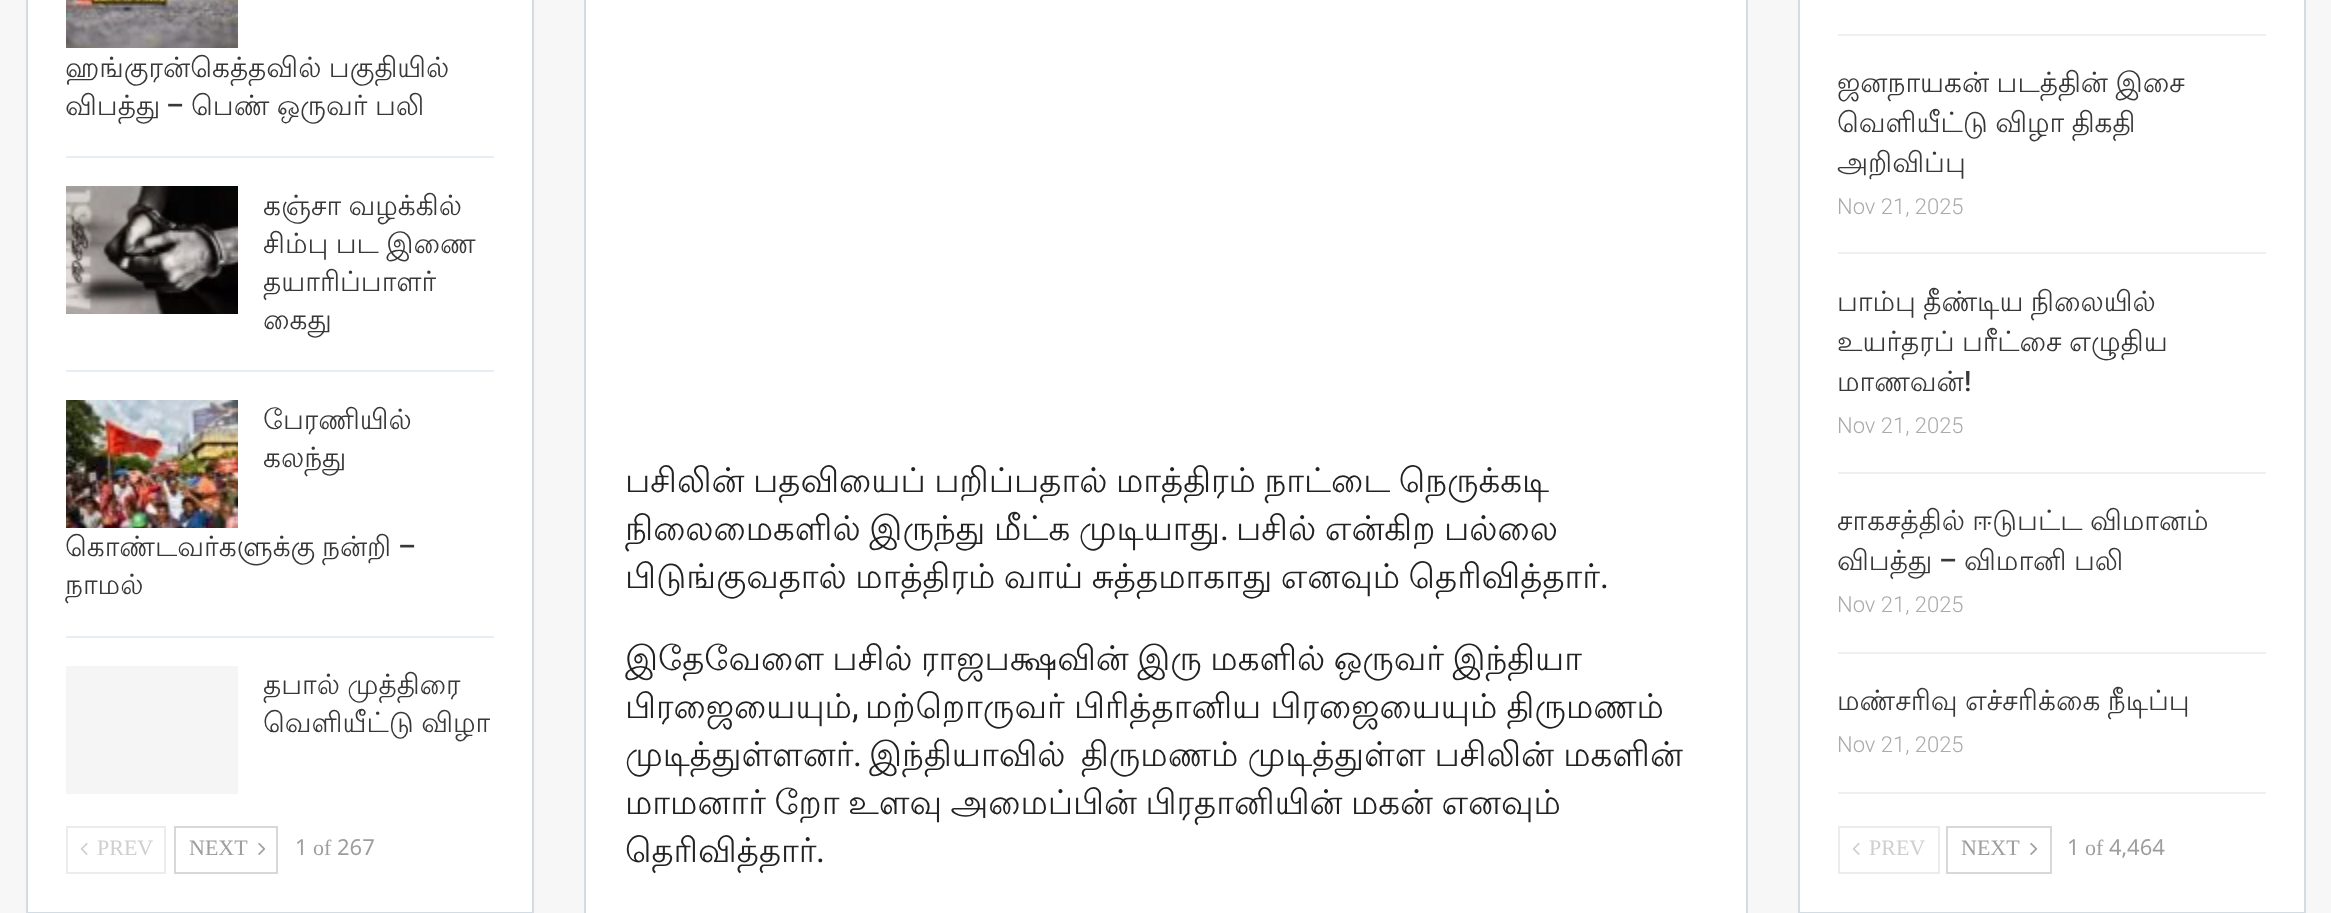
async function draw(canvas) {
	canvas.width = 2331;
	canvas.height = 913;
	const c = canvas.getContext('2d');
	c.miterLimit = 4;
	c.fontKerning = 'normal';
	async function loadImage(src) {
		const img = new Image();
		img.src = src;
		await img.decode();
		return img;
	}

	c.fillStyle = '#f7f7f7';
	c.fillRect(0, 0, 2331, 913);
	c.fillStyle = '#fff';
	c.beginPath();
	c.rect(27, -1, 506, 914);
	c.fill();
	c.strokeStyle = '#d2dce3';
	c.lineWidth = 2;
	c.stroke();
	c.fillStyle = '#e8edf1';
	c.fillRect(66, 156, 428, 2);
	c.drawImage(await loadImage('img1.png'), 66, 0, 172, 48);
	c.wordSpacing = '-1px';
	c.font = '28px Lohit Tamil';
	c.fillStyle = '#383838';
	c.fillText('ஹங்குரன்கெத்தவில் பகுதியில்', 65, 77);
	c.wordSpacing = '0px';
	c.fillText('விபத்து', 65, 115);
	c.font = '500 28px Roboto';
	c.fillText('–', 166, 115);
	c.wordSpacing = '-1px';
	c.font = '28px Lohit Tamil';
	c.fillText('பெண் ஒருவர் பலி', 191, 115);
	c.fillStyle = '#e8edf1';
	c.fillRect(66, 370, 428, 2);
	c.drawImage(await loadImage('img2.png'), 66, 186, 172, 128);
	c.fillStyle = '#383838';
	c.fillText('கஞ்சா வழக்கில்', 263, 215);
	c.fillText('சிம்பு பட இணை', 263, 253);
	c.wordSpacing = '0px';
	c.fillText('தயாரிப்பாளர்', 263, 291);
	c.fillText('கைது', 263, 329);
	c.fillStyle = '#e8edf1';
	c.fillRect(66, 636, 428, 2);
	c.drawImage(await loadImage('img3.png'), 66, 400, 172, 128);
	c.fillStyle = '#383838';
	for (const [text, x, y] of [
		['பேரணியில்', 263, 429],
		['கலந்து', 263, 467],
		['கொண்டவர்களுக்கு', 65, 556],
		['நன்றி', 322, 556],
	]) {
		c.fillText(text, x, y);
	}
	c.font = '500 28px Roboto';
	c.fillText('–', 398, 556);
	c.font = '28px Lohit Tamil';
	c.fillText('நாமல்', 65, 594);
	c.fillStyle = '#f5f5f5';
	c.fillRect(66, 666, 172, 128);
	c.wordSpacing = '-1px';
	c.fillStyle = '#383838';
	c.fillText('தபால் முத்திரை', 263, 694);
	c.fillText('வெளியீட்டு விழா', 263, 732);
	c.strokeStyle = '#ececec';
	c.strokeRect(67, 827, 98, 46);
	c.drawImage(await loadImage('img4.png'), 80, 842, 8, 13);
	c.wordSpacing = '0px';
	c.font = '22px Liberation Serif';
	c.fillStyle = '#cfcfcf';
	c.fillText('PREV', 97, 855);
	c.strokeStyle = '#d8d8d8';
	c.strokeRect(175, 827, 102, 46);
	c.fillStyle = '#9e9e9e';
	c.fillText('NEXT', 189, 855);
	c.drawImage(await loadImage('img5.png'), 258, 842, 8, 13);
	c.font = '22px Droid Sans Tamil';
	c.fillText('1', 295, 855);
	c.font = '22px Liberation Serif';
	c.fillText('of', 313, 855);
	c.font = '22px Droid Sans Tamil';
	c.fillText('267', 337, 855);
	c.fillStyle = '#fff';
	c.beginPath();
	c.rect(585, -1, 1162, 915);
	c.fill();
	c.strokeStyle = '#d2dce3';
	c.stroke();
	c.wordSpacing = '-1.75px';
	c.font = '34px Lohit Tamil';
	c.fillStyle = '#222';
	c.fillText('பசிலின் பதவியைப் பறிப்பதால் மாத்திரம் நாட்டை நெருக்கடி', 625, 492);
	c.wordSpacing = '-1.5px';
	c.fillText('நிலைமைகளில் இருந்து மீட்க முடியாது', 625, 540);
	c.wordSpacing = '0px';
	c.font = '34px Roboto';
	c.fillText('.', 1220, 540);
	c.wordSpacing = '-1.5px';
	c.font = '34px Lohit Tamil';
	c.fillText('பசில் என்கிற பல்லை', 1236, 540);
	c.wordSpacing = '-1.75px';
	c.fillText('பிடுங்குவதால் மாத்திரம் வாய் சுத்தமாகாது எனவும் தெரிவித்தார்', 625, 588);
	c.wordSpacing = '0px';
	c.font = '34px Roboto';
	c.fillText('.', 1600, 588);
	c.wordSpacing = '-1.75px';
	c.font = '34px Lohit Tamil';
	c.fillText('இதேவேளை பசில் ராஜபக்ஷவின் இரு மகளில் ஒருவர் இந்தியா', 625, 670);
	c.wordSpacing = '0px';
	c.fillText('பிரஜையையும்', 625, 718);
	c.font = '34px Roboto';
	c.fillText(',', 852, 718);
	c.wordSpacing = '-1px';
	c.font = '34px Lohit Tamil';
	c.fillText('மற்றொருவர் பிரித்தானிய பிரஜையையும் திருமணம்', 865, 718);
	c.wordSpacing = '0px';
	c.fillText('முடித்துள்ளனர்', 625, 766);
	c.font = '34px Roboto';
	c.fillText('.', 853, 766);
	c.font = '34px Lohit Tamil';
	c.fillText('இந்தியாவில்', 869, 766);
	c.wordSpacing = '-1px';
	c.fillText('திருமணம் முடித்துள்ள பசிலின் மகளின்', 1081, 766);
	c.wordSpacing = '-1.75px';
	c.fillText('மாமனார் றோ உளவு அமைப்பின் பிரதானியின் மகன் எனவும்', 625, 814);
	c.wordSpacing = '0px';
	c.fillText('தெரிவித்தார்', 625, 862);
	c.font = '34px Roboto';
	c.fillText('.', 816, 862);
	c.fillStyle = '#fff';
	c.beginPath();
	c.rect(1799, -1, 506, 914);
	c.fill();
	c.stroke();
	c.fillStyle = '#f0f0f0';
	c.fillRect(1838, 34, 428, 2);
	c.fillRect(1838, 252, 428, 2);
	c.wordSpacing = '-1px';
	c.font = '28px Lohit Tamil';
	c.fillStyle = '#383838';
	c.fillText('ஜனநாயகன் படத்தின் இசை', 1837, 92);
	c.fillText('வெளியீட்டு விழா திகதி', 1837, 132);
	c.wordSpacing = '0px';
	c.fillText('அறிவிப்பு', 1837, 172);
	c.font = '300 22px Roboto';
	c.fillStyle = '#aaa';
	c.fillText('Nov 21, 2025', 1837, 214);
	c.fillStyle = '#f0f0f0';
	c.fillRect(1838, 472, 428, 2);
	c.wordSpacing = '-1px';
	c.font = '28px Lohit Tamil';
	c.fillStyle = '#383838';
	c.fillText('பாம்பு தீண்டிய நிலையில்', 1837, 311);
	c.fillText('உயர்தரப் பரீட்சை எழுதிய', 1837, 351);
	c.wordSpacing = '0px';
	c.fillText('மாணவன்', 1837, 391);
	c.font = '500 28px Roboto';
	c.fillText('!', 1964, 391);
	c.font = '300 22px Roboto';
	c.fillStyle = '#aaa';
	c.fillText('Nov 21, 2025', 1837, 433);
	c.fillStyle = '#f0f0f0';
	c.fillRect(1838, 652, 428, 2);
	c.wordSpacing = '-1px';
	c.font = '28px Lohit Tamil';
	c.fillStyle = '#383838';
	c.fillText('சாகசத்தில் ஈடுபட்ட விமானம்', 1837, 530);
	c.wordSpacing = '0px';
	c.fillText('விபத்து', 1837, 570);
	c.font = '500 28px Roboto';
	c.fillText('–', 1939, 570);
	c.wordSpacing = '-1px';
	c.font = '28px Lohit Tamil';
	c.fillText('விமானி பலி', 1964, 570);
	c.wordSpacing = '0px';
	c.font = '300 22px Roboto';
	c.fillStyle = '#aaa';
	c.fillText('Nov 21, 2025', 1837, 612);
	c.fillStyle = '#f0f0f0';
	c.fillRect(1838, 792, 428, 2);
	c.wordSpacing = '-1px';
	c.font = '28px Lohit Tamil';
	c.fillStyle = '#383838';
	c.fillText('மண்சரிவு எச்சரிக்கை நீடிப்பு', 1837, 710);
	c.wordSpacing = '0px';
	c.font = '300 22px Roboto';
	c.fillStyle = '#aaa';
	c.fillText('Nov 21, 2025', 1837, 752);
	c.strokeStyle = '#ececec';
	c.strokeRect(1839, 827, 100, 46);
	c.drawImage(await loadImage('img4.png'), 1852, 842, 8, 13);
	c.font = '22px Liberation Serif';
	c.fillStyle = '#cfcfcf';
	c.fillText('PREV', 1869, 855);
	c.strokeStyle = '#d8d8d8';
	c.strokeRect(1947, 827, 104, 46);
	c.fillStyle = '#9e9e9e';
	c.fillText('NEXT', 1961, 855);
	c.drawImage(await loadImage('img5.png'), 2030, 842, 8, 13);
	c.font = '22px Droid Sans Tamil';
	c.fillText('1', 2067, 855);
	c.font = '22px Liberation Serif';
	c.fillText('of', 2085, 855);
	c.font = '22px Droid Sans Tamil';
	c.fillText('4,464', 2109, 855);
}

draw(document.querySelector('canvas'));
